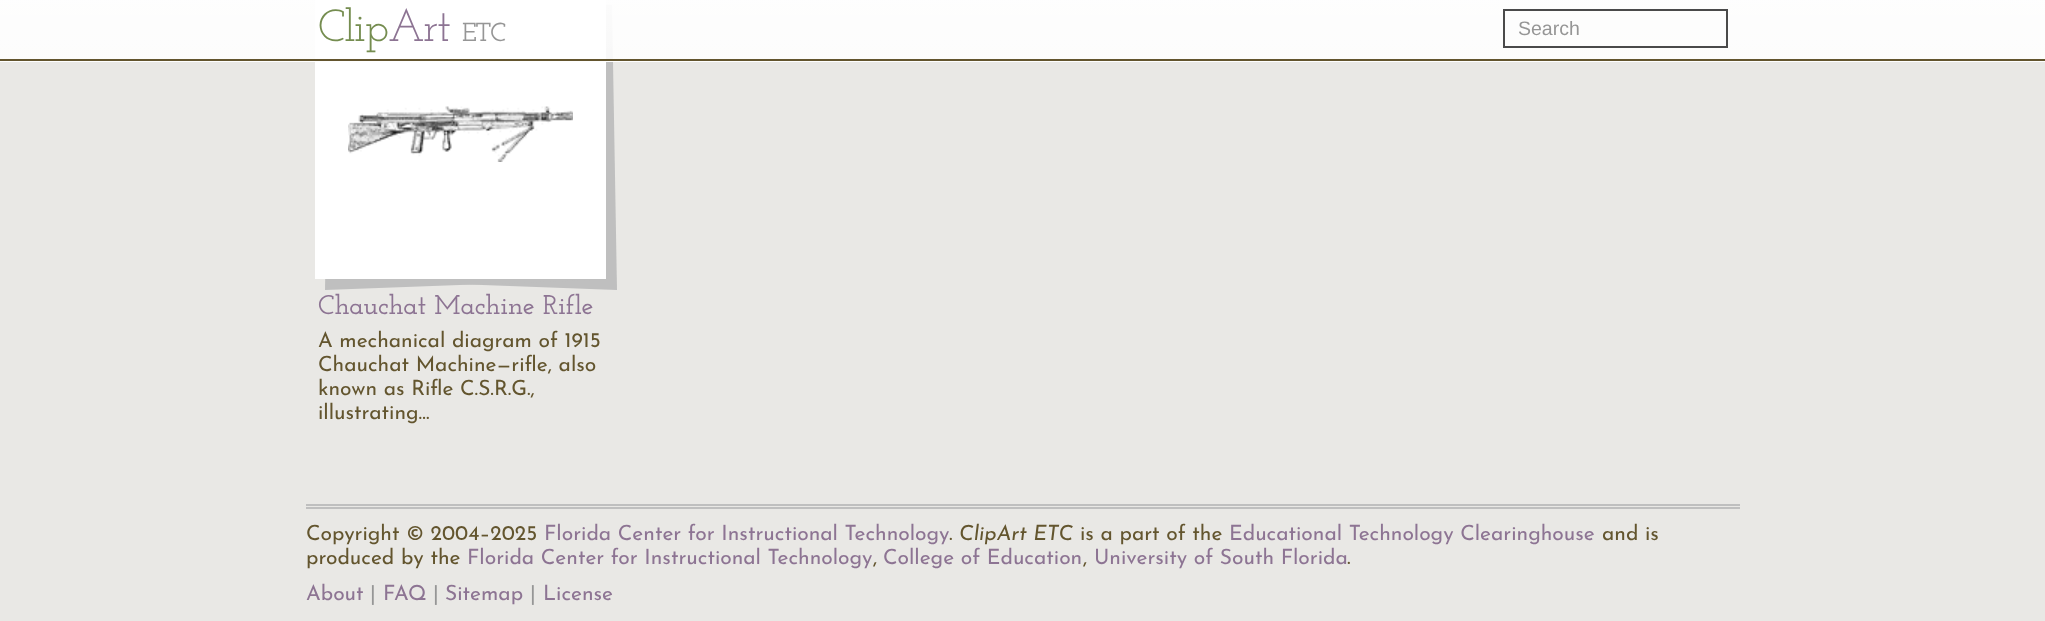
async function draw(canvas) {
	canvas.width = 2045;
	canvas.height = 621;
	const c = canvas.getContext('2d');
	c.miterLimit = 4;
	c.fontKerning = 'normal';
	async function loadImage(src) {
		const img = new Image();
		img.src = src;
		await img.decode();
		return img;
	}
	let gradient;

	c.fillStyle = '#e9e8e5';
	c.fillRect(0, 0, 2045, 621);
	c.fillStyle = '#bfbfbf';
	c.beginPath();
	c.moveTo(343, -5);
	c.lineTo(612, 5);
	c.lineTo(617, 290);
	c.lineTo(348, 280);
	c.closePath();
	c.fill();
	c.beginPath();
	c.moveTo(330, 5);
	c.lineTo(599, -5);
	c.lineTo(594, 280);
	c.lineTo(325, 290);
	c.closePath();
	c.fill();
	c.strokeStyle = '#fff';
	c.lineWidth = 3;
	c.strokeRect(316.5, -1.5, 288, 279);
	for (const [x, y, w, h, color] of [
		[318, 0, 285, 276, '#fff'],
		[0, 61, 2045, 1, '#fff'],
		[0, 0, 2045, 59, '#ffffffb8'],
	]) {
		c.fillStyle = color;
		c.fillRect(x, y, w, h);
	}
	gradient = c.createLinearGradient(1023, 0, 1023, 60);
	gradient.addColorStop(0, '#ffffffcc');
	gradient.addColorStop(1, '#ffffff99');
	c.fillStyle = gradient;
	c.fillRect(0, 0, 2045, 59);
	c.fillStyle = '#63552e';
	c.fillRect(0, 59, 2045, 2);
	c.letterSpacing = '-1.5px';
	c.font = '45px Josefin Slab';
	c.fillStyle = '#758d50';
	c.fillText('Cl', 318, 41);
	c.letterSpacing = '-1px';
	c.fillText('ip', 354, 41);
	c.letterSpacing = '-1.5px';
	c.fillStyle = '#8d7493';
	c.fillText('Art', 388, 41);
	c.font = '600 26px Josefin Slab';
	c.fillStyle = '#969696';
	c.fillText('ETC', 462, 41);
	c.strokeStyle = '#4a4a4a';
	c.lineWidth = 2;
	c.strokeRect(1504, 10, 223, 37);
	c.letterSpacing = '0px';
	c.font = '19.5px Liberation Sans';
	c.fillText('Search', 1518, 35);
	c.drawImage(await loadImage('img1.png'), 348, 106, 225, 56);
	c.font = '600 27px Josefin Slab';
	c.fillStyle = '#8d7493';
	c.fillText('Chauchat Machine Rifle', 318, 314);
	c.font = '21px Josefin Sans';
	c.fillStyle = '#63552e';
	for (const [text, x, y] of [
		['A mechanical diagram of 1915', 318, 347],
		['Chauchat Machine—rifle, also', 318, 371],
		['known as Rifle C.S.R.G.,', 318, 395],
		['illustrating…', 318, 419],
	]) {
		c.fillText(text, x, y);
	}
	c.fillStyle = '#bfbfbf';
	c.fillRect(306, 504, 1434, 2);
	c.fillRect(306, 507, 1434, 2);
	c.fillStyle = '#63552e';
	c.fillText('Copyright © 2004–2025', 306, 540);
	c.fillStyle = '#8d7493';
	c.fillText('Florida Center for Instructional Technology', 544, 540);
	c.fillStyle = '#63552e';
	c.fillText('.', 949, 540);
	c.font = 'italic 100 21px Josefin Sans';
	c.fillText('ClipArt ETC', 959, 540);
	c.font = '21px Josefin Sans';
	c.fillText('is a part of the', 1080, 540);
	c.fillStyle = '#8d7493';
	c.fillText('Educational Technology Clearinghouse', 1229, 540);
	c.fillStyle = '#63552e';
	c.fillText('and is', 1602, 540);
	c.fillText('produced by the', 306, 564);
	c.fillStyle = '#8d7493';
	c.fillText('Florida Center for Instructional Technology', 467, 564);
	c.fillStyle = '#63552e';
	c.fillText(',', 873, 564);
	c.fillStyle = '#8d7493';
	c.fillText('College of Education', 883, 564);
	c.fillStyle = '#63552e';
	c.fillText(',', 1083, 564);
	c.fillStyle = '#8d7493';
	c.fillText('University of South Florida', 1094, 564);
	c.fillStyle = '#63552e';
	c.fillText('.', 1347, 564);
	c.fillStyle = '#8d7493';
	c.fillText('About', 306, 600);
	c.fillStyle = '#969696';
	c.fillText('|', 370, 600);
	c.fillStyle = '#8d7493';
	c.fillText('FAQ', 383, 600);
	c.fillStyle = '#969696';
	c.fillText('|', 433, 600);
	c.fillStyle = '#8d7493';
	c.fillText('Sitemap', 445, 600);
	c.fillStyle = '#969696';
	c.fillText('|', 530, 600);
	c.fillStyle = '#8d7493';
	c.fillText('License', 543, 600);
}

draw(document.querySelector('canvas'));
